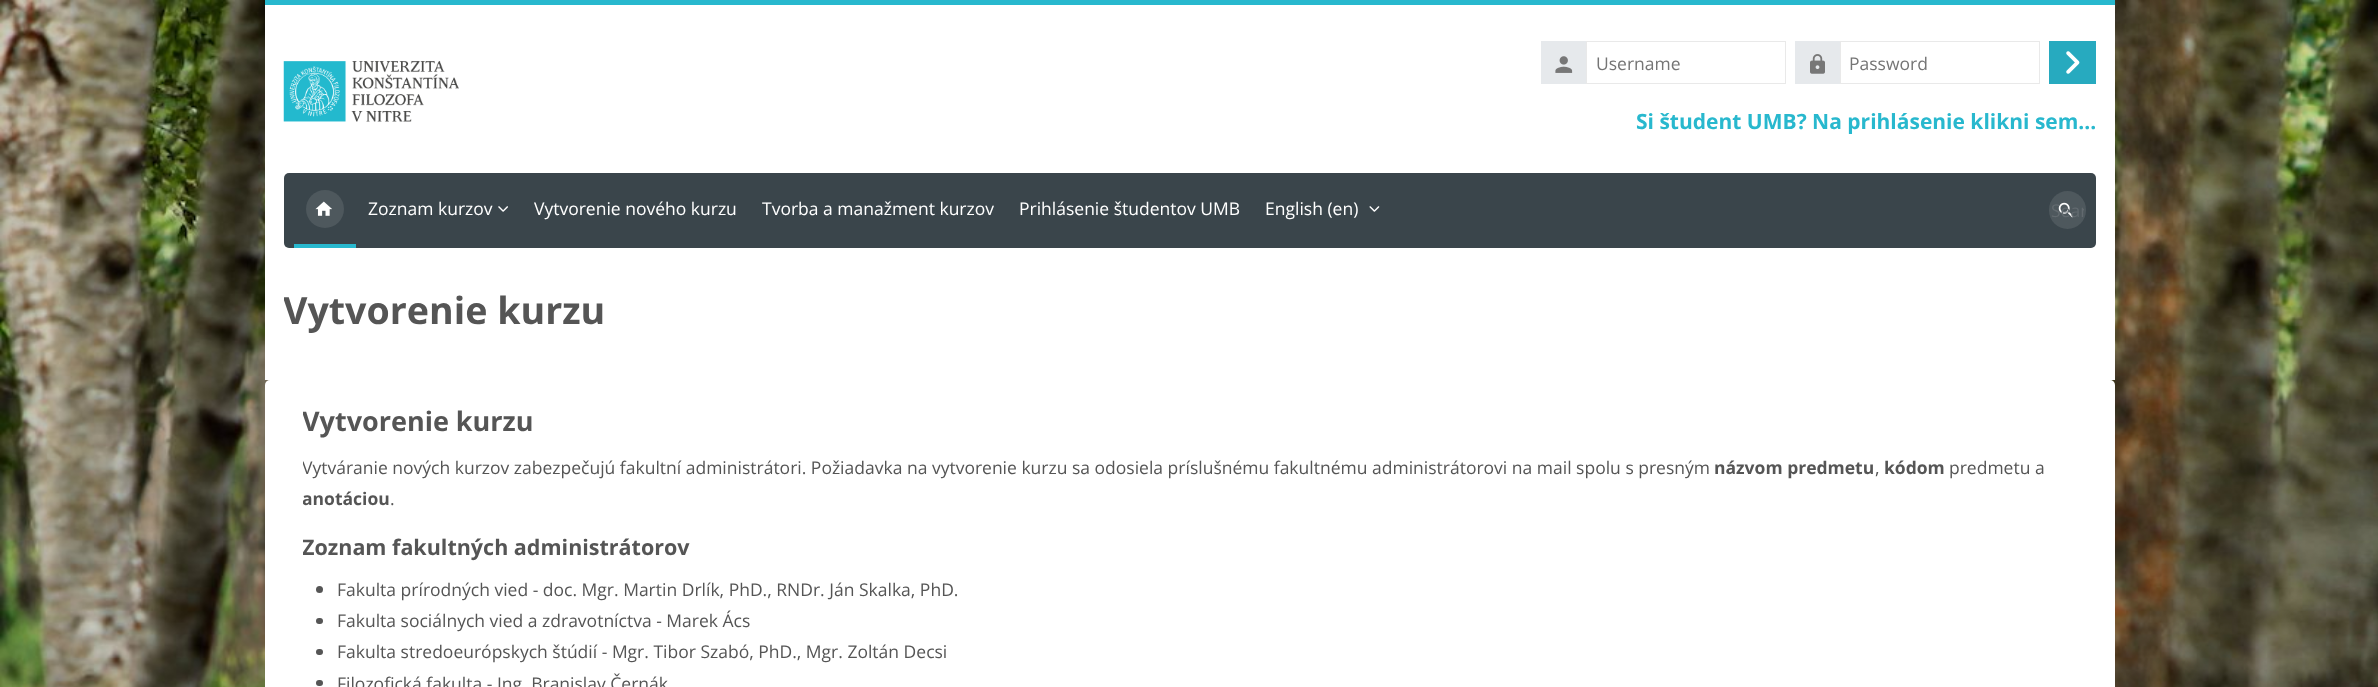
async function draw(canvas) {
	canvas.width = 2378;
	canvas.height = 687;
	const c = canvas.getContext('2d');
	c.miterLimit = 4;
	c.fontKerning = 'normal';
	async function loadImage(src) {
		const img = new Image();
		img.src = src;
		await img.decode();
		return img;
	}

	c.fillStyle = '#fff';
	c.fillRect(0, 0, 2378, 687);
	c.drawImage(await loadImage('img1.png'), 0, 0, 2378, 687);
	c.fillRect(265, 5, 1850, 375);
	c.fillStyle = '#28b8ce';
	c.fillRect(265, 0, 1850, 5);
	c.drawImage(await loadImage('img2.png'), 283, 61, 176, 61);
	c.fillStyle = '#e6e9ec';
	c.fillRect(1541, 41, 45, 43);
	c.drawImage(await loadImage('img3.png'), 1555, 56, 18, 17);
	c.strokeStyle = '#e9e9e9';
	c.strokeRect(1586.5, 41.5, 199, 42);
	c.font = '17.5px Open Sans';
	c.fillStyle = '#757575';
	c.fillText('Username', 1596, 70);
	c.fillStyle = '#e6e9ec';
	c.fillRect(1795, 41, 45, 43);
	c.drawImage(await loadImage('img4.png'), 1810, 54, 15, 20);
	c.strokeRect(1840.5, 41.5, 199, 42);
	c.fillStyle = '#757575';
	c.fillText('Password', 1849, 70);
	c.fillStyle = '#27aabf';
	c.fillRect(2049, 41, 47, 43);
	c.drawImage(await loadImage('img5.png'), 2066, 51, 14, 23);
	c.font = 'bold 21px Open Sans';
	c.fillStyle = '#28b8ce';
	c.fillText('Si študent UMB? Na prihlásenie klikni sem...', 1636, 129);
	c.fillStyle = '#3a454b';
	c.beginPath();
	c.roundRect(284, 173, 1812, 75, 5);
	c.fill();
	c.fillStyle = '#28b8ce';
	c.fillRect(294, 244, 62, 4);
	c.fillStyle = '#4e585d';
	c.beginPath();
	c.arc(325, 209, 19, 0, 2 * Math.PI);
	c.fill();
	c.drawImage(await loadImage('img6.png'), 315, 201, 17, 15);
	c.font = '17.5px Open Sans';
	c.fillStyle = '#fff';
	c.fillText('Zoznam kurzov', 368, 215);
	c.drawImage(await loadImage('img7.png'), 498, 206, 10, 6);
	for (const [text, x, y] of [
		['Vytvorenie nového kurzu', 534, 215],
		['Tvorba a manažment kurzov', 762, 215],
		['Prihlásenie študentov UMB', 1019, 215],
		['English (en)', 1265, 215],
	]) {
		c.fillText(text, x, y);
	}
	c.drawImage(await loadImage('img8.png'), 1369, 206, 11, 6);
	c.fillStyle = '#4e585d';
	c.beginPath();
	c.roundRect(2049, 191, 37, 38, 18.5);
	c.fill();
	c.drawImage(await loadImage('img9.png'), 2058, 202, 16, 16);
	c.save();
	c.beginPath();
	c.rect(2051, 198, 33, 23);
	c.clip();
	c.fillStyle = '#626a6f';
	c.fillText('Sear', 2051, 217);
	c.restore();
	c.save();
	c.beginPath();
	c.rect(284, 248, 322, 123);
	c.clip();
	c.font = 'bold 37.6px Open Sans';
	c.fillStyle = '#555';
	c.fillText('Vytvorenie kurzu', 283, 324);
	c.restore();
	c.fillStyle = '#fff';
	c.beginPath();
	c.roundRect(265, 380, 1850, 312, 5);
	c.fill();
	c.save();
	c.beginPath();
	c.rect(303, 399, 1775, 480);
	c.clip();
	c.font = 'bold 27px Open Sans';
	c.fillStyle = '#555';
	c.fillText('Vytvorenie kurzu', 302, 431);
	c.font = '17.5px Open Sans';
	c.fillText('Vytváranie nových kurzov zabezpečujú fakultní administrátori. Požiadavka na vytvorenie kurzu sa odosiela príslušnému fakultnému administrátorovi na mail spolu s presným', 302, 474);
	c.restore();
	c.font = 'bold 17.5px Open Sans';
	c.fillStyle = '#555';
	c.fillText('názvom predmetu', 1714, 474);
	c.font = '17.5px Open Sans';
	c.fillText(',', 1875, 474);
	c.font = 'bold 17.5px Open Sans';
	c.fillText('kódom', 1884, 474);
	c.font = '17.5px Open Sans';
	c.fillText('predmetu a', 1949, 474);
	c.save();
	c.beginPath();
	c.rect(303, 399, 1775, 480);
	c.clip();
	c.font = 'bold 17.5px Open Sans';
	c.fillText('anotáciou', 302, 505);
	c.restore();
	c.fillText('.', 390, 505);
	c.save();
	c.beginPath();
	c.rect(303, 399, 1775, 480);
	c.clip();
	c.font = 'bold 21.5px Open Sans';
	c.fillText('Zoznam fakultných administrátorov', 302, 555);
	c.restore();
	c.beginPath();
	c.arc(319.5, 589.5, 3.5, 0, 2 * Math.PI);
	c.fill();
	c.fillText('Fakulta prírodných vied - doc. Mgr. Martin Drlík, PhD., RNDr. Ján Skalka, PhD.', 337, 596);
	c.beginPath();
	c.roundRect(316, 618, 7, 6, 3);
	c.fill();
	c.fillText('Fakulta sociálnych vied a zdravotníctva - Marek Ács', 337, 627);
	c.beginPath();
	c.roundRect(316, 649, 7, 6, 3);
	c.fill();
	c.fillText('Fakulta stredoeurópskych štúdií - Mgr. Tibor Szabó, PhD., Mgr. Zoltán Decsi', 337, 658);
	c.beginPath();
	c.roundRect(316, 680, 7, 6, 3);
	c.fill();
	c.fillText('Filozofická fakulta - Ing. Branislav Černák', 337, 690);
}

draw(document.querySelector('canvas'));
